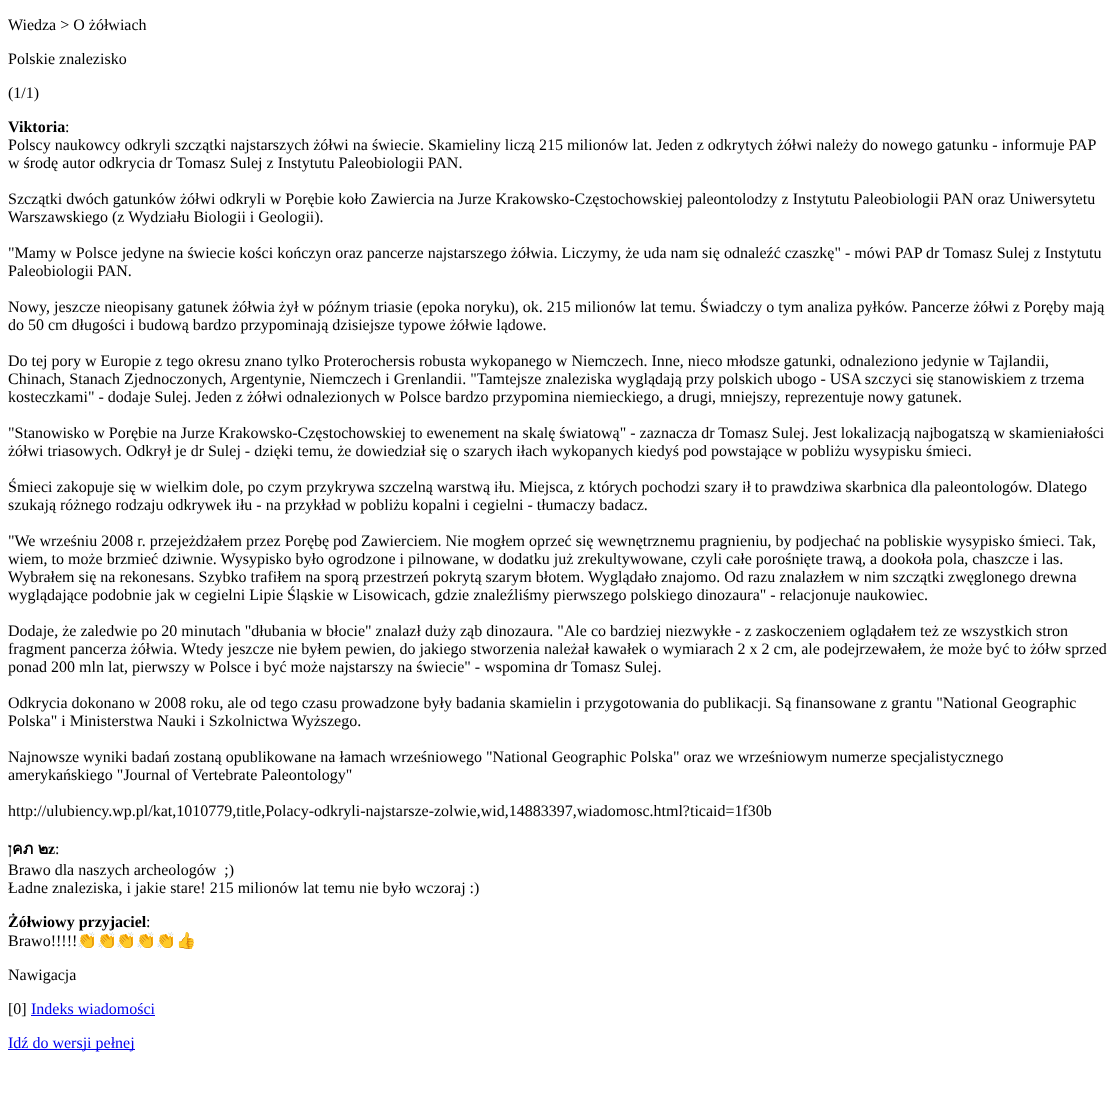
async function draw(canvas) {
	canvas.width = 1118;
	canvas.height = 1101;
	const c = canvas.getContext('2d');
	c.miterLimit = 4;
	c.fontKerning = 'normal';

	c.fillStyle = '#fff';
	c.fillRect(0, 0, 1118, 1101);
	c.font = '16px Liberation Serif';
	c.fillStyle = '#000';
	for (const [text, x, y] of [
		['Wiedza > O żółwiach', 8, 30],
		['Polskie znalezisko', 8, 64],
		['(1/1)', 8, 98],
	]) {
		c.fillText(text, x, y);
	}
	c.font = 'bold 16px Liberation Serif';
	c.fillText('Viktoria', 8, 132);
	c.font = '16px Liberation Serif';
	for (const [text, x, y] of [
		[':', 65, 132],
		['Polscy naukowcy odkryli szczątki najstarszych żółwi na świecie. Skamieliny liczą 215 milionów lat. Jeden z odkrytych żółwi należy do nowego gatunku - informuje PAP', 8, 150],
		['w środę autor odkrycia dr Tomasz Sulej z Instytutu Paleobiologii PAN.', 8, 168],
		['Szczątki dwóch gatunków żółwi odkryli w Porębie koło Zawiercia na Jurze Krakowsko-Częstochowskiej paleontolodzy z Instytutu Paleobiologii PAN oraz Uniwersytetu', 8, 204],
		['Warszawskiego (z Wydziału Biologii i Geologii).', 8, 222],
		['"Mamy w Polsce jedyne na świecie kości kończyn oraz pancerze najstarszego żółwia. Liczymy, że uda nam się odnaleźć czaszkę" - mówi PAP dr Tomasz Sulej z Instytutu', 8, 258],
		['Paleobiologii PAN.', 8, 276],
		['Nowy, jeszcze nieopisany gatunek żółwia żył w późnym triasie (epoka noryku), ok. 215 milionów lat temu. Świadczy o tym analiza pyłków. Pancerze żółwi z Poręby mają', 8, 312],
		['do 50 cm długości i budową bardzo przypominają dzisiejsze typowe żółwie lądowe.', 8, 330],
		['Do tej pory w Europie z tego okresu znano tylko Proterochersis robusta wykopanego w Niemczech. Inne, nieco młodsze gatunki, odnaleziono jedynie w Tajlandii,', 8, 366],
		['Chinach, Stanach Zjednoczonych, Argentynie, Niemczech i Grenlandii. "Tamtejsze znaleziska wyglądają przy polskich ubogo - USA szczyci się stanowiskiem z trzema', 8, 384],
		['kosteczkami" - dodaje Sulej. Jeden z żółwi odnalezionych w Polsce bardzo przypomina niemieckiego, a drugi, mniejszy, reprezentuje nowy gatunek.', 8, 402],
		['"Stanowisko w Porębie na Jurze Krakowsko-Częstochowskiej to ewenement na skalę światową" - zaznacza dr Tomasz Sulej. Jest lokalizacją najbogatszą w skamieniałości', 8, 438],
		['żółwi triasowych. Odkrył je dr Sulej - dzięki temu, że dowiedział się o szarych iłach wykopanych kiedyś pod powstające w pobliżu wysypisku śmieci.', 8, 456],
		['Śmieci zakopuje się w wielkim dole, po czym przykrywa szczelną warstwą iłu. Miejsca, z których pochodzi szary ił to prawdziwa skarbnica dla paleontologów. Dlatego', 8, 492],
		['szukają różnego rodzaju odkrywek iłu - na przykład w pobliżu kopalni i cegielni - tłumaczy badacz.', 8, 510],
		['"We wrześniu 2008 r. przejeżdżałem przez Porębę pod Zawierciem. Nie mogłem oprzeć się wewnętrznemu pragnieniu, by podjechać na pobliskie wysypisko śmieci. Tak,', 8, 546],
		['wiem, to może brzmieć dziwnie. Wysypisko było ogrodzone i pilnowane, w dodatku już zrekultywowane, czyli całe porośnięte trawą, a dookoła pola, chaszcze i las.', 8, 564],
		['Wybrałem się na rekonesans. Szybko trafiłem na sporą przestrzeń pokrytą szarym błotem. Wyglądało znajomo. Od razu znalazłem w nim szczątki zwęglonego drewna', 8, 582],
		['wyglądające podobnie jak w cegielni Lipie Śląskie w Lisowicach, gdzie znaleźliśmy pierwszego polskiego dinozaura" - relacjonuje naukowiec.', 8, 600],
		['Dodaje, że zaledwie po 20 minutach "dłubania w błocie" znalazł duży ząb dinozaura. "Ale co bardziej niezwykłe - z zaskoczeniem oglądałem też ze wszystkich stron', 8, 636],
		['fragment pancerza żółwia. Wtedy jeszcze nie byłem pewien, do jakiego stworzenia należał kawałek o wymiarach 2 x 2 cm, ale podejrzewałem, że może być to żółw sprzed', 8, 654],
		['ponad 200 mln lat, pierwszy w Polsce i być może najstarszy na świecie" - wspomina dr Tomasz Sulej.', 8, 672],
		['Odkrycia dokonano w 2008 roku, ale od tego czasu prowadzone były badania skamielin i przygotowania do publikacji. Są finansowane z grantu "National Geographic', 8, 708],
		['Polska" i Ministerstwa Nauki i Szkolnictwa Wyższego.', 8, 726],
		['Najnowsze wyniki badań zostaną opublikowane na łamach wrześniowego "National Geographic Polska" oraz we wrześniowym numerze specjalistycznego', 8, 762],
		['amerykańskiego "Journal of Vertebrate Paleontology"', 8, 780],
		['http://ulubiency.wp.pl/kat,1010779,title,Polacy-odkryli-najstarsze-zolwie,wid,14883397,wiadomosc.html?ticaid=1f30b', 8, 816],
	]) {
		c.fillText(text, x, y);
	}
	c.direction = 'rtl';
	c.font = 'bold 16px Liberation Serif';
	c.fillText('ן', 12, 854);
	c.wordSpacing = '-1px';
	c.direction = 'ltr';
	c.font = 'bold 16px Loma';
	c.fillText('คภ ๒', 12, 854);
	c.wordSpacing = '0px';
	c.font = 'bold 16px Liberation Serif';
	c.fillText('z', 48, 854);
	c.font = '16px Liberation Serif';
	for (const [text, x, y] of [
		[':', 55, 854],
		['Brawo dla naszych archeologów  ;)', 8, 875],
		['Ładne znaleziska, i jakie stare! 215 milionów lat temu nie było wczoraj :)', 8, 893],
	]) {
		c.fillText(text, x, y);
	}
	c.font = 'bold 16px Liberation Serif';
	c.fillText('Żółwiowy przyjaciel', 8, 927);
	c.font = '16px Liberation Serif';
	c.fillText(':', 146, 927);
	c.fillText('Brawo!!!!!', 8, 946);
	c.font = '16px Noto Color Emoji';
	c.fillText('👏👏👏👏👏👍', 77, 946);
	c.font = '16px Liberation Serif';
	c.fillText('Nawigacja', 8, 980);
	c.fillText('[0]', 8, 1014);
	c.fillStyle = '#00e';
	c.fillText('Indeks wiadomości', 31, 1014);
	c.fillRect(31, 1015, 124, 1);
	c.fillRect(8, 1049, 127, 1);
	c.fillText('Idź do wersji pełnej', 8, 1048);
}

draw(document.querySelector('canvas'));
